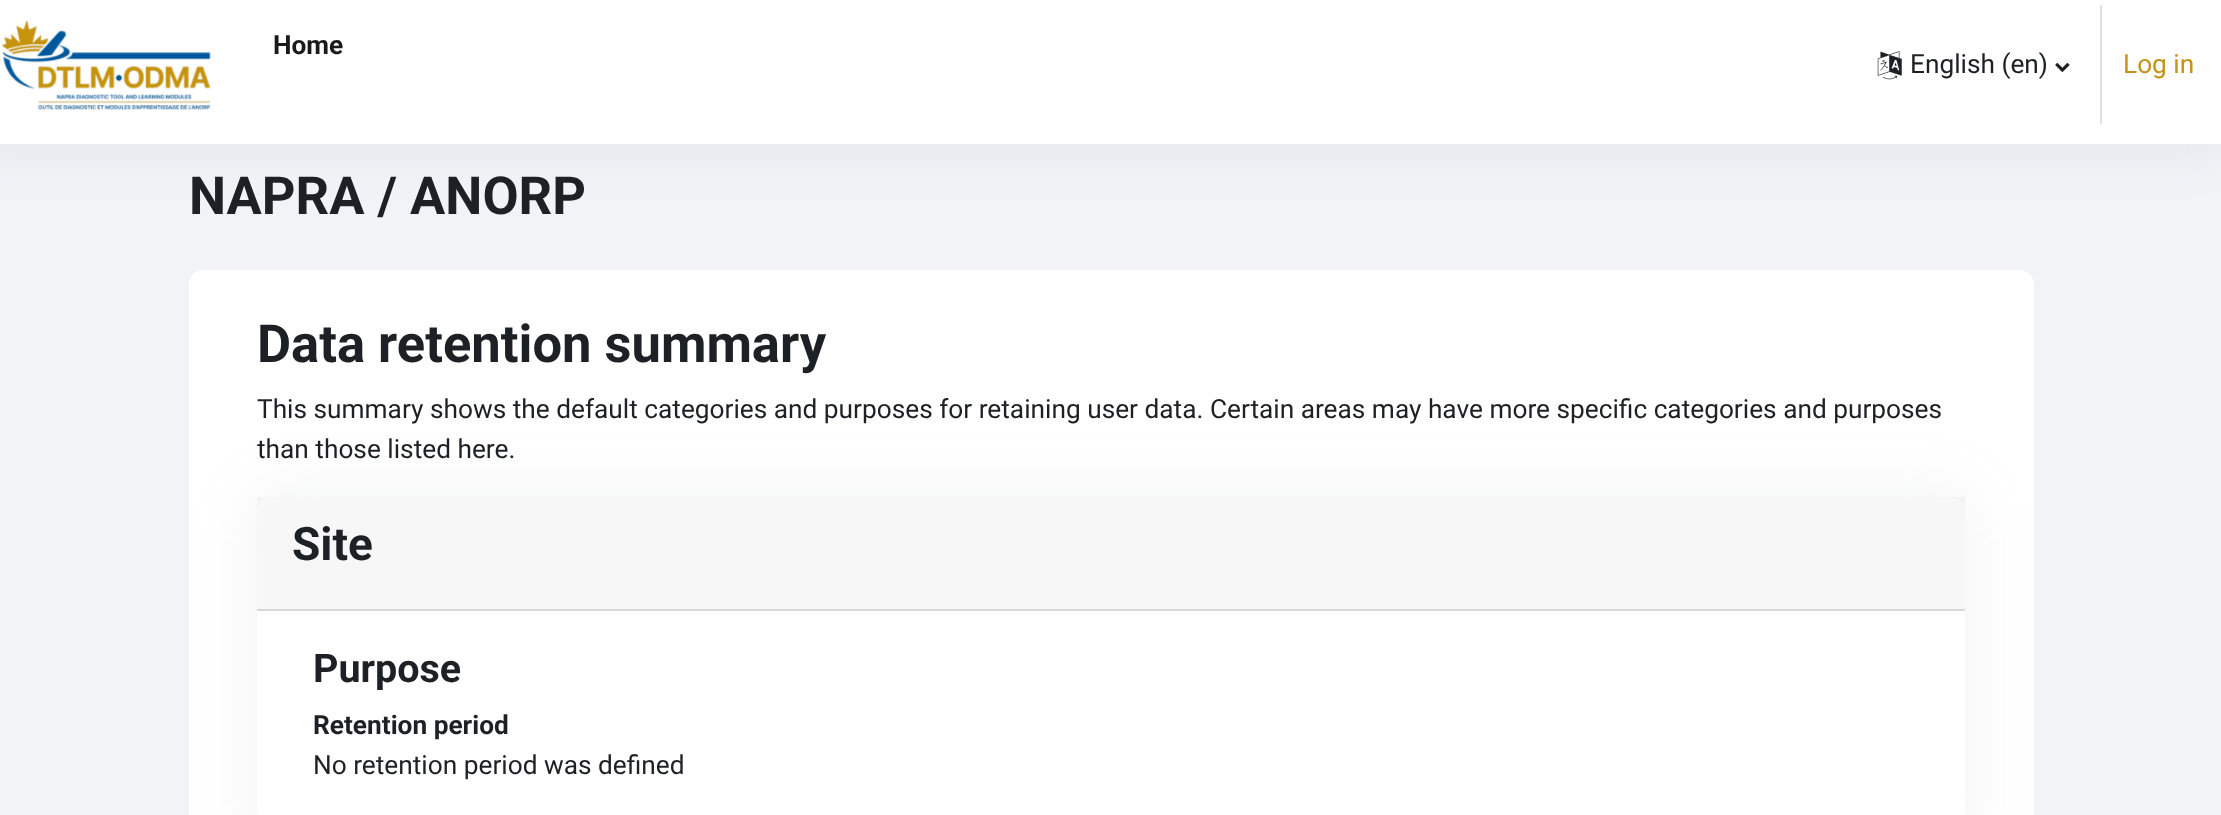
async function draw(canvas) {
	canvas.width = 2221;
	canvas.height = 815;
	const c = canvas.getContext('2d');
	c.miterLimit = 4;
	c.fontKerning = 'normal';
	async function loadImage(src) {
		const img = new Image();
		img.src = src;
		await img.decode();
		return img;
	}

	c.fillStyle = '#f2f3f7';
	c.fillRect(0, 0, 2221, 815);
	c.fillStyle = '#8c98a421';
	c.filter = 'blur(21px)';
	c.beginPath();
	c.rect(-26, -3, 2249, 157);
	c.fill();
	c.filter = 'none';
	c.fillStyle = '#fff';
	c.fillRect(0, 0, 2221, 144);
	c.drawImage(await loadImage('img1.png'), 1, 20, 210, 90);
	c.font = 'bold 26.25px Roboto';
	c.fillStyle = '#1a1a1a';
	c.fillText('Home', 273, 54);
	c.drawImage(await loadImage('img2.png'), 1877, 51, 25, 29);
	c.font = '26.25px Roboto';
	c.fillStyle = '#1d2125';
	c.fillText('English (en)', 1910, 73);
	c.drawImage(await loadImage('img3.png'), 2055, 63, 15, 9);
	c.fillStyle = '#dee2e6';
	c.fillRect(2100, 5, 2, 119);
	c.fillStyle = '#c59217';
	c.fillText('Log in', 2123, 73);
	c.font = 'bold 52.5px Roboto';
	c.fillStyle = '#1d2125';
	c.fillText('NAPRA / ANORP', 189, 214);
	c.fillStyle = '#fff';
	c.beginPath();
	c.moveTo(203, 270);
	c.lineTo(2020, 270);
	c.bezierCurveTo(2027.5, 270, 2034, 276.5, 2034, 284);
	c.lineTo(2034, 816);
	c.lineTo(189, 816);
	c.lineTo(189, 284);
	c.bezierCurveTo(189, 276.5, 195.5, 270, 203, 270);
	c.closePath();
	c.fill();
	c.fillStyle = '#1d2125';
	c.fillText('Data retention summary', 257, 362);
	c.font = '26.25px Roboto';
	c.fillText('This summary shows the default categories and purposes for retaining user data. Certain areas may have more specific categories and purposes', 257, 418);
	c.fillText('than those listed here.', 257, 458);
	c.fillStyle = '#9aa1ab26';
	c.filter = 'blur(30.5px)';
	c.beginPath();
	c.roundRect(257, 497, 1708, 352, 14);
	c.fill();
	c.filter = 'none';
	c.fillStyle = '#fff';
	c.beginPath();
	c.moveTo(271, 497);
	c.lineTo(1951, 497);
	c.bezierCurveTo(1958.5, 497, 1965, 503.5, 1965, 511);
	c.lineTo(1965, 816);
	c.lineTo(257, 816);
	c.lineTo(257, 511);
	c.bezierCurveTo(257, 503.5, 263.5, 497, 271, 497);
	c.closePath();
	c.fill();
	c.fillStyle = '#00000008';
	c.fillRect(257, 497, 1708, 112);
	c.fillStyle = '#d8d8d8';
	c.fillRect(257, 609, 1708, 2);
	c.font = 'bold 46px Roboto';
	c.fillStyle = '#1d2125';
	c.fillText('Site', 292, 560);
	c.font = 'bold 39.5px Roboto';
	c.fillText('Purpose', 313, 682);
	c.font = 'bold 26.25px Roboto';
	c.fillText('Retention period', 313, 734);
	c.font = '26.25px Roboto';
	c.fillText('No retention period was defined', 313, 774);
}

draw(document.querySelector('canvas'));
